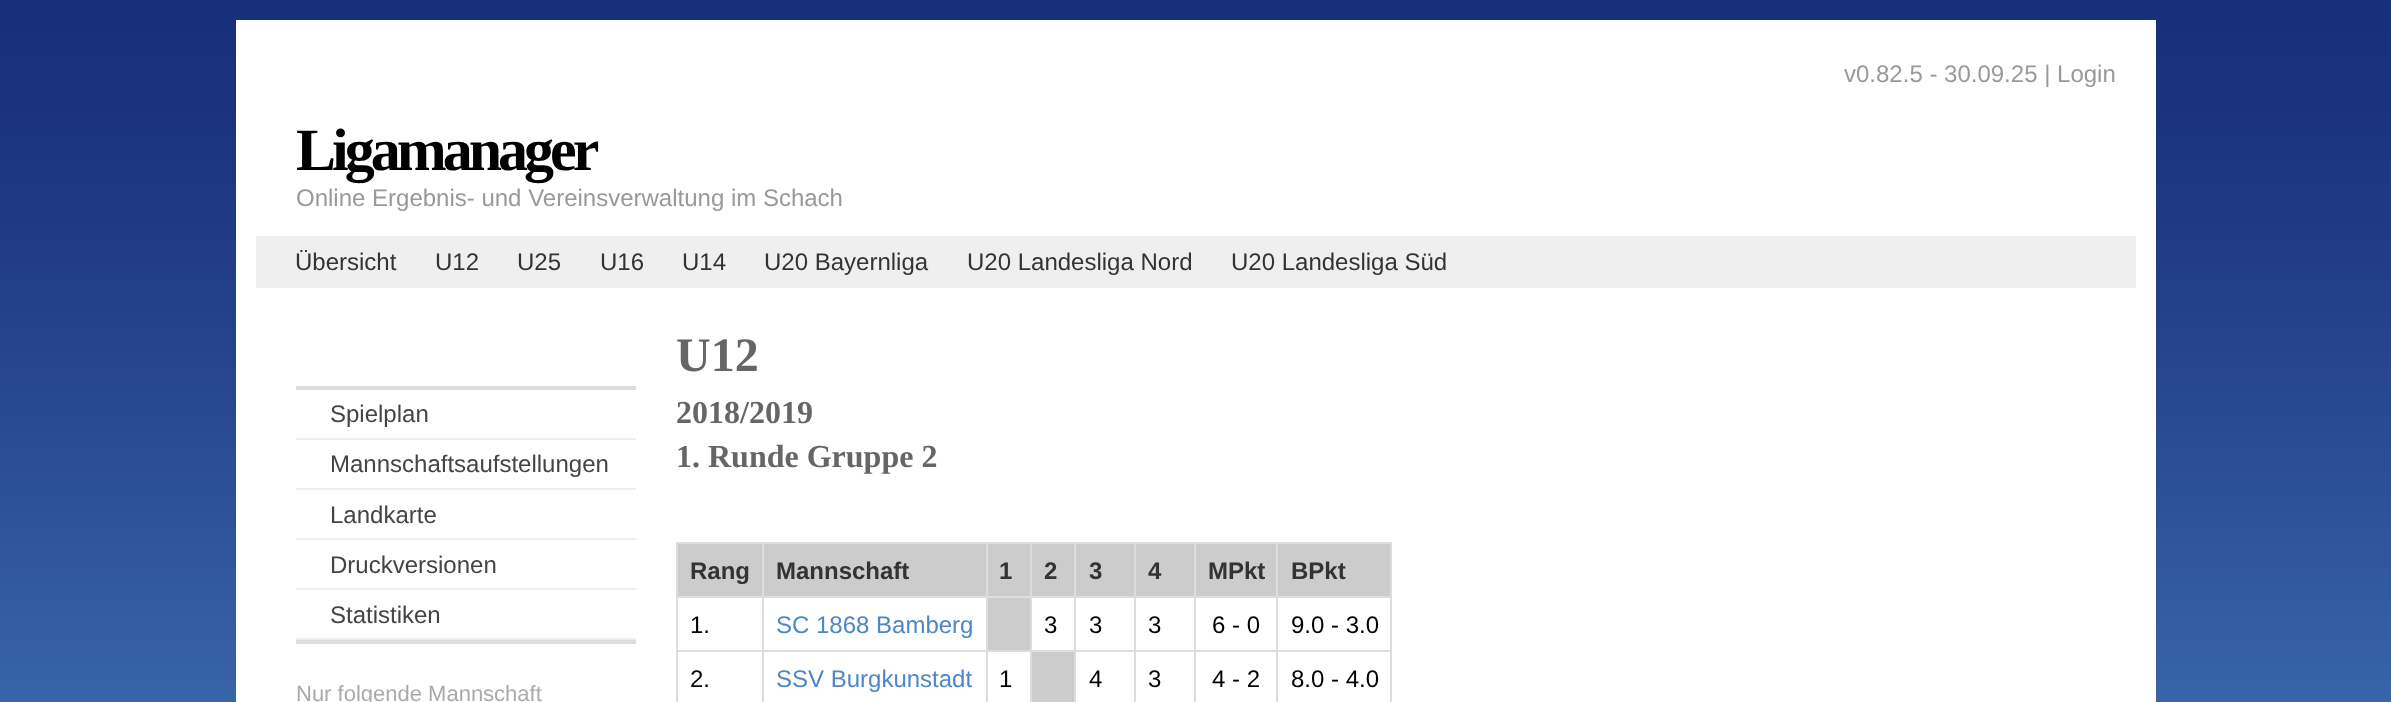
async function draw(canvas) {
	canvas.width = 2391;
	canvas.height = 702;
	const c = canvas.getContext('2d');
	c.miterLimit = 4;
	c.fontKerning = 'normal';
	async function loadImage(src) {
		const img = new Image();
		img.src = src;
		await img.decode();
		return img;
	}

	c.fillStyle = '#fff';
	c.fillRect(0, 0, 2391, 702);
	c.drawImage(await loadImage('img1.png'), 0, 0, 2391, 702);
	c.fillRect(236, 20, 1920, 682);
	c.font = '24px Liberation Sans';
	c.fillStyle = '#999';
	c.fillText('v0.82.5 - 30.09.25 | Login', 1844, 82);
	c.letterSpacing = '-4px';
	c.font = 'bold 60px Liberation Serif';
	c.fillStyle = '#000';
	c.fillText('Ligamanager', 296, 170);
	c.letterSpacing = '0px';
	c.font = '24px Liberation Sans';
	c.fillStyle = '#999';
	c.fillText('Online Ergebnis- und Vereinsverwaltung im Schach', 296, 206);
	c.fillStyle = '#efefef';
	c.fillRect(256, 236, 1880, 52);
	c.fillStyle = '#333';
	for (const [text, x, y] of [
		['Übersicht', 295, 270],
		['U12', 435, 270],
		['U25', 517, 270],
		['U16', 600, 270],
		['U14', 682, 270],
		['U20 Bayernliga', 764, 270],
		['U20 Landesliga Nord', 967, 270],
		['U20 Landesliga Süd', 1231, 270],
	]) {
		c.fillText(text, x, y);
	}
	for (const [x, y, w, h, color] of [
		[296, 386, 340, 4, '#ddd'],
		[296, 640, 340, 4, '#ddd'],
		[296, 438, 340, 2, '#eee'],
	]) {
		c.fillStyle = color;
		c.fillRect(x, y, w, h);
	}
	c.fillStyle = '#444';
	c.fillText('Spielplan', 330, 422);
	c.fillStyle = '#eee';
	c.fillRect(296, 488, 340, 2);
	c.fillStyle = '#444';
	c.fillText('Mannschaftsaufstellungen', 330, 472);
	c.fillStyle = '#eee';
	c.fillRect(296, 538, 340, 2);
	c.fillStyle = '#444';
	c.fillText('Landkarte', 330, 523);
	c.fillStyle = '#eee';
	c.fillRect(296, 588, 340, 2);
	c.fillStyle = '#444';
	c.fillText('Druckversionen', 330, 573);
	c.fillStyle = '#eee';
	c.fillRect(296, 638, 340, 2);
	c.fillStyle = '#444';
	c.fillText('Statistiken', 330, 623);
	c.font = '22px Liberation Sans';
	c.fillStyle = '#aaa';
	c.fillText('Nur folgende Mannschaft', 296, 701);
	c.font = 'bold 48px Liberation Serif';
	c.fillStyle = '#666';
	c.fillText('U12', 676, 371);
	c.font = 'bold 32px Liberation Serif';
	c.fillText('2018/2019', 676, 423);
	c.fillText('1. Runde Gruppe 2', 676, 467);
	for (const [x, y, w, h, color] of [
		[676, 542, 716, 2, '#ddd'],
		[1390, 542, 2, 160, '#ddd'],
		[676, 542, 2, 160, '#ddd'],
		[678, 544, 84, 52, '#ccc'],
	]) {
		c.fillStyle = color;
		c.fillRect(x, y, w, h);
	}
	c.font = 'bold 24px Liberation Sans';
	c.fillStyle = '#333';
	c.fillText('Rang', 690, 579);
	for (const [x, y, w, h, color] of [
		[764, 544, 222, 52, '#ccc'],
		[1276, 596, 116, 2, '#ddd'],
		[1276, 650, 116, 2, '#ddd'],
		[1276, 650, 2, 52, '#ddd'],
		[1194, 650, 84, 2, '#ddd'],
		[1276, 596, 2, 56, '#ddd'],
		[1194, 596, 84, 2, '#ddd'],
		[1194, 650, 2, 52, '#ddd'],
		[1134, 650, 62, 2, '#ddd'],
		[1194, 596, 2, 56, '#ddd'],
		[1134, 596, 62, 2, '#ddd'],
		[1134, 650, 2, 52, '#ddd'],
		[1074, 650, 62, 2, '#ddd'],
		[1134, 596, 2, 56, '#ddd'],
		[1074, 596, 62, 2, '#ddd'],
		[1074, 650, 2, 52, '#ddd'],
		[1030, 650, 46, 2, '#ddd'],
		[1074, 596, 2, 56, '#ddd'],
		[1030, 596, 46, 2, '#ddd'],
		[1030, 650, 2, 52, '#ddd'],
		[986, 650, 46, 2, '#ddd'],
		[1030, 596, 2, 56, '#ddd'],
		[986, 596, 46, 2, '#ddd'],
		[986, 650, 2, 52, '#ddd'],
		[762, 650, 226, 2, '#ddd'],
		[986, 596, 2, 56, '#ddd'],
		[762, 596, 226, 2, '#ddd'],
		[762, 650, 2, 52, '#ddd'],
		[676, 650, 88, 2, '#ddd'],
		[762, 596, 2, 56, '#ddd'],
		[676, 596, 88, 2, '#ddd'],
		[762, 542, 2, 56, '#ddd'],
	]) {
		c.fillStyle = color;
		c.fillRect(x, y, w, h);
	}
	c.fillStyle = '#333';
	c.fillText('Mannschaft', 776, 579);
	c.fillStyle = '#ccc';
	c.fillRect(988, 544, 42, 52);
	c.fillStyle = '#ddd';
	c.fillRect(986, 542, 2, 56);
	c.fillStyle = '#333';
	c.fillText('1', 999, 579);
	c.fillStyle = '#ccc';
	c.fillRect(1032, 544, 42, 52);
	c.fillStyle = '#ddd';
	c.fillRect(1030, 542, 2, 56);
	c.fillStyle = '#333';
	c.fillText('2', 1044, 579);
	c.fillStyle = '#ccc';
	c.fillRect(1076, 544, 58, 52);
	c.fillStyle = '#ddd';
	c.fillRect(1074, 542, 2, 56);
	c.fillStyle = '#333';
	c.fillText('3', 1089, 579);
	c.fillStyle = '#ccc';
	c.fillRect(1136, 544, 58, 52);
	c.fillStyle = '#ddd';
	c.fillRect(1134, 542, 2, 56);
	c.fillStyle = '#333';
	c.fillText('4', 1148, 579);
	c.fillStyle = '#ccc';
	c.fillRect(1196, 544, 80, 52);
	c.fillStyle = '#ddd';
	c.fillRect(1194, 542, 2, 56);
	c.fillStyle = '#333';
	c.fillText('MPkt', 1208, 579);
	c.fillStyle = '#ccc';
	c.fillRect(1278, 544, 112, 52);
	c.fillStyle = '#ddd';
	c.fillRect(1276, 542, 2, 56);
	c.fillStyle = '#333';
	c.fillText('BPkt', 1291, 579);
	c.font = '24px Liberation Sans';
	c.fillStyle = '#000';
	c.fillText('1.', 690, 633);
	c.fillStyle = '#4d87c7';
	c.fillText('SC 1868 Bamberg', 776, 633);
	c.fillStyle = '#ccc';
	c.fillRect(988, 598, 42, 52);
	c.fillStyle = '#000';
	for (const [text, x, y] of [
		['3', 1044, 633],
		['3', 1089, 633],
		['3', 1148, 633],
		['6 - 0', 1212, 633],
		['9.0 - 3.0', 1291, 633],
		['2.', 690, 687],
	]) {
		c.fillText(text, x, y);
	}
	c.fillStyle = '#4d87c7';
	c.fillText('SSV Burgkunstadt', 776, 687);
	c.fillStyle = '#000';
	c.fillText('1', 999, 687);
	c.fillStyle = '#ccc';
	c.fillRect(1032, 652, 42, 50);
	c.fillStyle = '#000';
	for (const [text, x, y] of [
		['4', 1089, 687],
		['3', 1148, 687],
		['4 - 2', 1212, 687],
		['8.0 - 4.0', 1291, 687],
	]) {
		c.fillText(text, x, y);
	}
}

draw(document.querySelector('canvas'));
